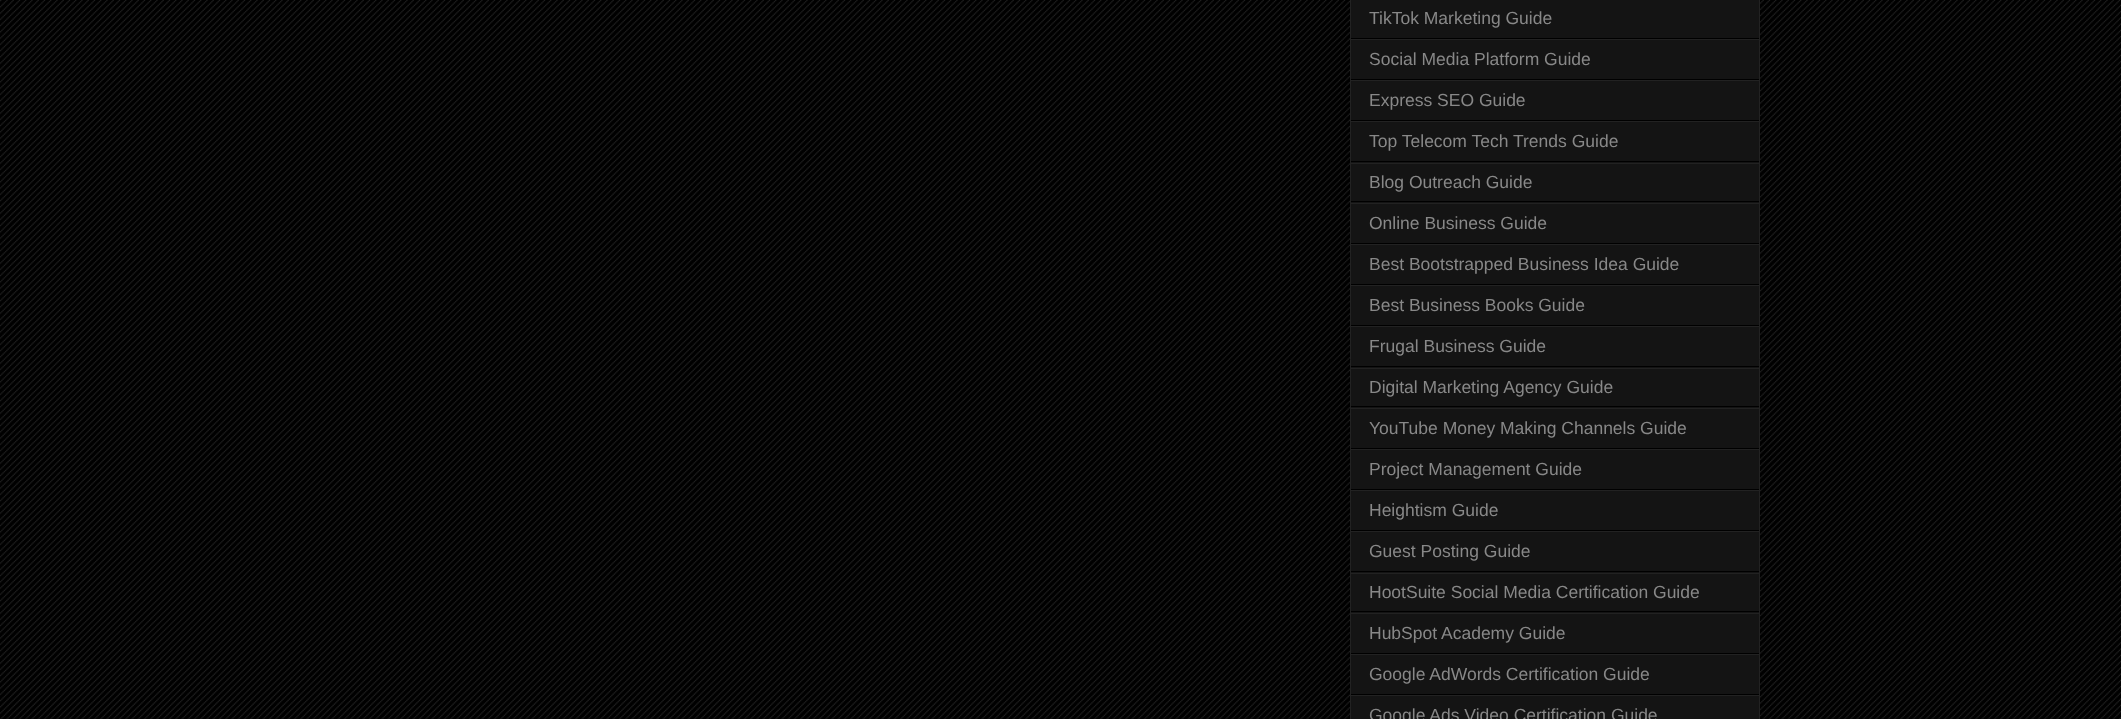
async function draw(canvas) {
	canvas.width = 2121;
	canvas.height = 719;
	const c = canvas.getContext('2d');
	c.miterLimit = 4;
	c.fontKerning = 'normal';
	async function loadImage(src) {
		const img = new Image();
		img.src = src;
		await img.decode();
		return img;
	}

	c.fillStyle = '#000';
	c.fillRect(0, 0, 2121, 719);
	c.drawImage(await loadImage('img1.png'), 0, 0, 2121, 719);
	c.fillStyle = '#141414';
	c.beginPath();
	c.rect(1350.5, -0.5, 409, 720);
	c.fill();
	c.strokeStyle = '#222';
	c.stroke();
	c.fillStyle = '#000';
	c.fillRect(1351, 38, 408, 1);
	c.font = '17.5px Liberation Sans';
	c.fillStyle = '#888';
	c.fillText('TikTok Marketing Guide', 1369, 24);
	c.fillStyle = '#222';
	c.fillRect(1351, 39, 408, 1);
	c.fillStyle = '#000';
	c.fillRect(1351, 79, 408, 1);
	c.fillStyle = '#888';
	c.fillText('Social Media Platform Guide', 1369, 65);
	c.fillStyle = '#222';
	c.fillRect(1351, 80, 408, 1);
	c.fillStyle = '#000';
	c.fillRect(1351, 120, 408, 1);
	c.fillStyle = '#888';
	c.fillText('Express SEO Guide', 1369, 106);
	c.fillStyle = '#222';
	c.fillRect(1351, 121, 408, 1);
	c.fillStyle = '#000';
	c.fillRect(1351, 161, 408, 1);
	c.fillStyle = '#888';
	c.fillText('Top Telecom Tech Trends Guide', 1369, 147);
	c.fillStyle = '#222';
	c.fillRect(1351, 163, 408, 1);
	c.fillStyle = '#000';
	c.fillRect(1351, 201, 408, 1);
	c.fillStyle = '#888';
	c.fillText('Blog Outreach Guide', 1369, 188);
	c.fillStyle = '#222';
	c.fillRect(1351, 203, 408, 1);
	c.fillStyle = '#000';
	c.fillRect(1351, 243, 408, 1);
	c.fillStyle = '#888';
	c.fillText('Online Business Guide', 1369, 229);
	c.fillStyle = '#222';
	c.fillRect(1351, 244, 408, 1);
	c.fillStyle = '#000';
	c.fillRect(1351, 284, 408, 1);
	c.fillStyle = '#888';
	c.fillText('Best Bootstrapped Business Idea Guide', 1369, 270);
	c.fillStyle = '#222';
	c.fillRect(1351, 285, 408, 1);
	c.fillStyle = '#000';
	c.fillRect(1351, 325, 408, 1);
	c.fillStyle = '#888';
	c.fillText('Best Business Books Guide', 1369, 311);
	c.fillStyle = '#222';
	c.fillRect(1351, 326, 408, 1);
	c.fillStyle = '#000';
	c.fillRect(1351, 366, 408, 1);
	c.fillStyle = '#888';
	c.fillText('Frugal Business Guide', 1369, 352);
	c.fillStyle = '#222';
	c.fillRect(1351, 368, 408, 1);
	c.fillStyle = '#000';
	c.fillRect(1351, 406, 408, 1);
	c.fillStyle = '#888';
	c.fillText('Digital Marketing Agency Guide', 1369, 393);
	c.fillStyle = '#222';
	c.fillRect(1351, 408, 408, 1);
	c.fillStyle = '#000';
	c.fillRect(1351, 448, 408, 1);
	c.fillStyle = '#888';
	c.fillText('YouTube Money Making Channels Guide', 1369, 434);
	c.fillStyle = '#222';
	c.fillRect(1351, 449, 408, 1);
	c.fillStyle = '#000';
	c.fillRect(1351, 489, 408, 1);
	c.fillStyle = '#888';
	c.fillText('Project Management Guide', 1369, 475);
	c.fillStyle = '#222';
	c.fillRect(1351, 490, 408, 1);
	c.fillStyle = '#000';
	c.fillRect(1351, 530, 408, 1);
	c.fillStyle = '#888';
	c.fillText('Heightism Guide', 1369, 516);
	c.fillStyle = '#222';
	c.fillRect(1351, 531, 408, 1);
	c.fillStyle = '#000';
	c.fillRect(1351, 571, 408, 1);
	c.fillStyle = '#888';
	c.fillText('Guest Posting Guide', 1369, 557);
	c.fillStyle = '#222';
	c.fillRect(1351, 573, 408, 1);
	c.fillStyle = '#000';
	c.fillRect(1351, 611, 408, 1);
	c.fillStyle = '#888';
	c.fillText('HootSuite Social Media Certification Guide', 1369, 598);
	c.fillStyle = '#222';
	c.fillRect(1351, 613, 408, 1);
	c.fillStyle = '#000';
	c.fillRect(1351, 653, 408, 1);
	c.fillStyle = '#888';
	c.fillText('HubSpot Academy Guide', 1369, 639);
	c.fillStyle = '#222';
	c.fillRect(1351, 654, 408, 1);
	c.fillStyle = '#000';
	c.fillRect(1351, 694, 408, 1);
	c.fillStyle = '#888';
	c.fillText('Google AdWords Certification Guide', 1369, 680);
	c.fillStyle = '#222';
	c.fillRect(1351, 695, 408, 1);
	c.fillStyle = '#888';
	c.fillText('Google Ads Video Certification Guide', 1369, 721);
}

draw(document.querySelector('canvas'));
